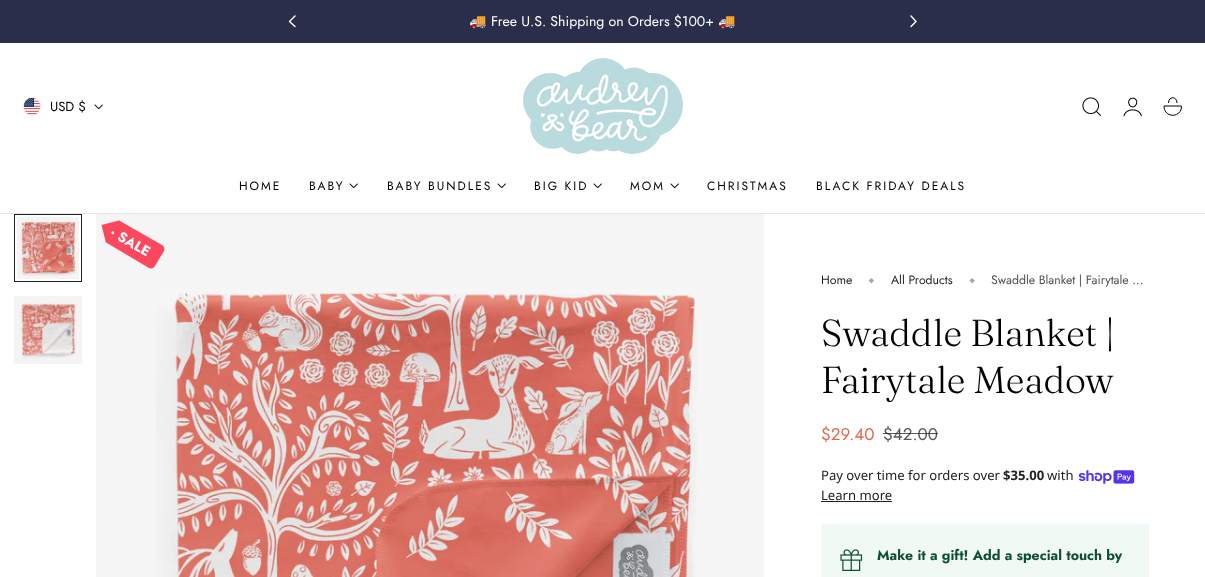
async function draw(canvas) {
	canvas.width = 1205;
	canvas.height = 577;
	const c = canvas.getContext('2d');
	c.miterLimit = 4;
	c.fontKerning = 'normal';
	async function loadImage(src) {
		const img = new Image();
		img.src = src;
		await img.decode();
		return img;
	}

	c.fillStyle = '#fff';
	c.fillRect(0, 0, 1205, 577);
	c.fillStyle = '#2a2e4b';
	c.fillRect(0, 0, 1205, 43);
	c.font = '14.1px Noto Color Emoji';
	c.fillStyle = '#fff';
	c.fillText('🚚', 469, 26);
	c.font = '14.1px Jost';
	c.fillText('Free U.S. Shipping on Orders $100+', 491, 26);
	c.font = '14.1px Noto Color Emoji';
	c.fillText('🚚', 718, 26);
	c.beginPath();
	c.moveTo(295, 16);
	c.lineTo(289.5, 21.5);
	c.lineTo(295, 26.5);
	c.strokeStyle = '#fff';
	c.lineWidth = 1.4;
	c.lineCap = 'round';
	c.lineJoin = 'round';
	c.stroke();
	c.beginPath();
	c.moveTo(911, 16);
	c.lineTo(916, 21.5);
	c.lineTo(911, 26.5);
	c.stroke();
	c.fillStyle = '#e6e6e6';
	c.fillRect(0, 213, 1205, 1);
	c.beginPath();
	c.roundRect(23.5, 97.5, 17, 18, 8.5);
	c.strokeStyle = '#e9e9e9';
	c.lineWidth = 1;
	c.lineJoin = 'miter';
	c.stroke();
	c.drawImage(await loadImage('img1.png'), 24, 98, 16, 17);
	c.font = '13.1px Jost';
	c.fillStyle = '#000';
	c.fillText('USD $', 50, 111);
	c.drawImage(await loadImage('img2.png'), 94, 104, 9, 5);
	c.drawImage(await loadImage('img3.png'), 523, 58, 160, 96);
	c.drawImage(await loadImage('img4.png'), 1082, 97, 19, 19);
	c.drawImage(await loadImage('img5.png'), 1123, 97, 19, 20);
	c.beginPath();
	c.moveTo(1177, 103);
	c.bezierCurveTo(1177, 96, 1168.5, 96, 1168.5, 103);
	c.moveTo(1181.5, 106.5);
	c.bezierCurveTo(1181.5, 118, 1164, 118.5, 1164, 106);
	c.lineTo(1181.5, 106);
	c.closePath();
	c.strokeStyle = '#000';
	c.lineCap = 'butt';
	c.stroke();
	c.letterSpacing = '2px';
	c.font = '12px Jost';
	c.fillText('HOME', 239, 190);
	c.fillText('BABY', 309, 190);
	c.drawImage(await loadImage('img6.png'), 349, 183, 9, 5);
	c.fillText('BABY BUNDLES', 387, 190);
	c.drawImage(await loadImage('img6.png'), 497, 183, 9, 5);
	c.fillText('BIG KID', 534, 190);
	c.drawImage(await loadImage('img6.png'), 593, 183, 9, 5);
	c.fillText('MOM', 630, 190);
	c.drawImage(await loadImage('img6.png'), 670, 183, 9, 5);
	c.fillText('CHRISTMAS', 707, 190);
	c.fillText('BLACK FRIDAY DEALS', 816, 190);
	c.fillStyle = '#f4f4f4';
	c.fillRect(17, 217, 62, 62);
	c.drawImage(await loadImage('img7.png'), 20, 222, 56, 54);
	c.strokeStyle = '#222';
	c.strokeRect(14.5, 214.5, 67, 67);
	c.fillRect(14, 296, 68, 68);
	c.drawImage(await loadImage('img8.png'), 19, 303, 57, 56);
	c.fillStyle = '#f5f5f5';
	c.fillRect(96, 214, 668, 363);
	c.drawImage(await loadImage('img9.png'), 156, 289, 541, 288);
	c.fillStyle = '#fb485e';
	c.beginPath();
	c.moveTo(120, 221);
	c.lineTo(162, 245);
	c.bezierCurveTo(164, 246, 165, 249, 164, 251);
	c.lineTo(155, 266);
	c.bezierCurveTo(154, 268, 151, 269, 149, 268);
	c.lineTo(107, 243);
	c.bezierCurveTo(106, 243, 106, 242, 106, 241);
	c.lineTo(117, 222);
	c.bezierCurveTo(118, 221, 119, 220, 120, 221);
	c.closePath();
	c.fill();
	c.beginPath();
	c.moveTo(119, 220.5);
	c.lineTo(106, 243);
	c.lineTo(101.5, 225);
	c.closePath();
	c.fill();
	c.letterSpacing = '0px';
	c.font = 'bold 14px Jost';
	c.fillStyle = '#fff';
	c.save();
	c.translate(109, 235);
	c.rotate(30 * Math.PI / 180);
	c.fillText('· SALE', 0, 0);
	c.restore();
	c.font = '12.25px Jost';
	c.fillStyle = '#222';
	c.fillText('Home', 821, 284);
	c.fillStyle = '#a7a7a7';
	c.beginPath();
	c.moveTo(871.5, 278);
	c.lineTo(874, 280.5);
	c.lineTo(871.5, 283.5);
	c.lineTo(868.5, 280.5);
	c.closePath();
	c.fill();
	c.fillStyle = '#222';
	c.fillText('All Products', 891, 284);
	c.fillStyle = '#a7a7a7';
	c.beginPath();
	c.moveTo(972, 278);
	c.lineTo(975, 280.5);
	c.lineTo(972, 283.5);
	c.lineTo(969.5, 280.5);
	c.closePath();
	c.fill();
	c.fillStyle = '#4e4e4e';
	c.fillText('Swaddle Blanket | Fairytale …', 991, 284);
	c.font = '300 37.5px Fraunces';
	c.fillStyle = '#000';
	c.fillText('Swaddle Blanket |', 821, 346);
	c.fillText('Fairytale Meadow', 821, 393);
	c.font = '17px Jost';
	c.fillStyle = '#e36849';
	c.fillText('$29.40', 821, 440);
	c.fillStyle = '#595959';
	c.fillText('$42.00', 883, 440);
	c.fillStyle = '#222222bf';
	c.fillRect(883, 433, 55, 1);
	c.font = '13.1px Noto Sans';
	c.fillStyle = '#222';
	c.fillText('Pay over time for orders over', 821, 480);
	c.font = 'bold 13.1px Noto Sans';
	c.fillText('$35.00', 1003, 480);
	c.font = '13.1px Noto Sans';
	c.fillText('with', 1047, 480);
	c.drawImage(await loadImage('img10.png'), 1078, 470, 57, 14);
	c.fillText('Learn more', 821, 500);
	c.fillRect(821, 501, 71, 1);
	c.fillStyle = '#f1f9f5';
	c.fillRect(821, 524, 328, 53);
	c.drawImage(await loadImage('img11.png'), 840, 549, 23, 22);
	c.font = 'bold 14.1px Jost';
	c.fillStyle = '#0f4e32';
	c.fillText('Make it a gift! Add a special touch by', 877, 560);
}

draw(document.querySelector('canvas'));
